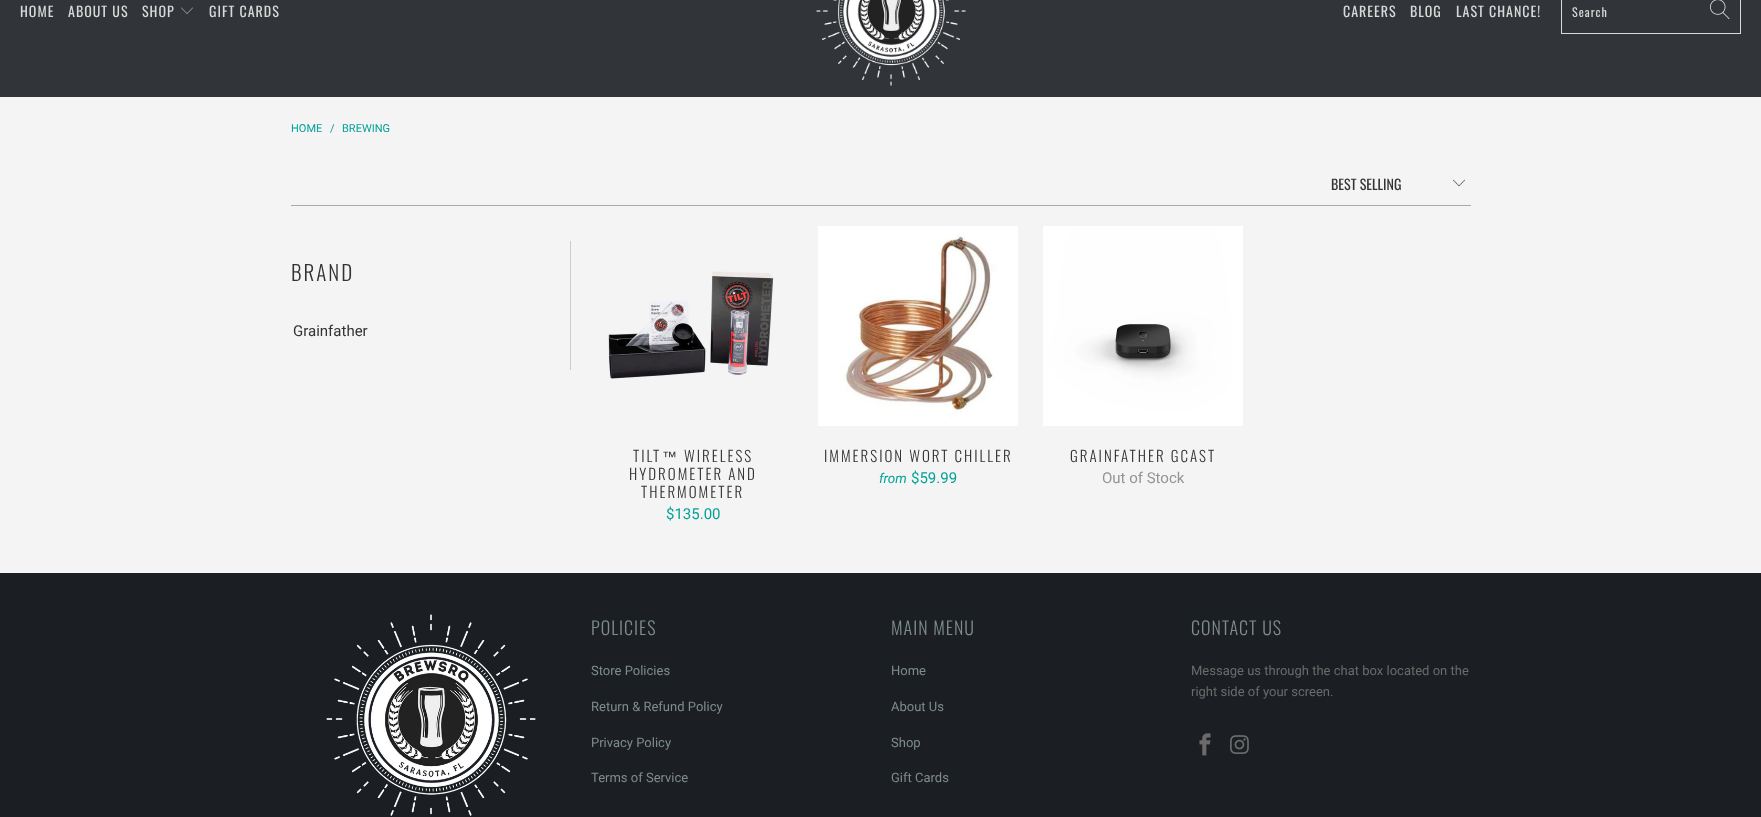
async function draw(canvas) {
	canvas.width = 1761;
	canvas.height = 817;
	const c = canvas.getContext('2d');
	c.miterLimit = 4;
	c.fontKerning = 'normal';
	async function loadImage(src) {
		const img = new Image();
		img.src = src;
		await img.decode();
		return img;
	}

	c.fillStyle = '#f4f4f4';
	c.fillRect(0, 0, 1761, 817);
	c.fillStyle = '#313438';
	c.fillRect(0, 0, 1761, 97);
	c.letterSpacing = '1px';
	c.font = '14px Oswald';
	c.fillStyle = '#d9d9d9';
	for (const [text, x, y] of [
		['HOME', 20, 17],
		['ABOUT US', 68, 17],
		['SHOP', 142, 17],
	]) {
		c.fillText(text, x, y);
	}
	c.drawImage(await loadImage('img1.png'), 181, 7, 12, 7);
	c.fillText('GIFT CARDS', 209, 17);
	c.drawImage(await loadImage('img2.png'), 816, 0, 150, 86);
	for (const [text, x, y] of [
		['CAREERS', 1343, 17],
		['BLOG', 1410, 17],
		['LAST CHANCE!', 1456, 17],
	]) {
		c.fillText(text, x, y);
	}
	c.strokeStyle = '#d9d9d9';
	c.strokeRect(1561.5, -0.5, 179, 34);
	c.font = '12px Oswald';
	c.fillText('Search', 1572, 17);
	c.drawImage(await loadImage('img3.png'), 1710, 0, 20, 20);
	c.letterSpacing = '0px';
	c.font = '11px Roboto';
	c.fillStyle = '#03a196';
	for (const [text, x, y] of [
		['HOME', 291, 132],
		['/', 330, 132],
		['BREWING', 342, 132],
	]) {
		c.fillText(text, x, y);
	}
	c.drawImage(await loadImage('img4.png'), 1453, 179, 12, 8);
	c.font = '14px Oswald';
	c.fillStyle = '#333';
	c.fillText('BEST SELLING', 1331, 190);
	c.fillStyle = '#aaa';
	c.fillRect(291, 205, 1180, 1);
	c.fillStyle = '#ccc';
	c.fillRect(570, 241, 1, 129);
	c.letterSpacing = '2px';
	c.font = '300 21px Oswald';
	c.fillStyle = '#333';
	c.fillText('BRAND', 291, 281);
	c.letterSpacing = '0px';
	c.font = '15px Roboto';
	c.fillText('Grainfather', 293, 336);
	c.drawImage(await loadImage('img5.png'), 608, 271, 166, 108);
	c.letterSpacing = '2px';
	c.font = '300 15px Oswald';
	c.fillText('TILT', 633, 462);
	c.font = '15px Liberation Sans';
	c.fillText('™', 662, 462);
	c.font = '300 15px Oswald';
	for (const [text, x, y] of [
		['WIRELESS', 684, 462],
		['HYDROMETER AND', 629, 480],
		['THERMOMETER', 641, 498],
	]) {
		c.fillText(text, x, y);
	}
	c.letterSpacing = '0px';
	c.font = '15px Roboto';
	c.fillStyle = '#03a196';
	c.fillText('$135.00', 666, 519);
	c.drawImage(await loadImage('img6.png'), 818, 226, 200, 200);
	c.letterSpacing = '2px';
	c.font = '300 15px Oswald';
	c.fillStyle = '#333';
	c.fillText('IMMERSION WORT CHILLER', 824, 462);
	c.letterSpacing = '0px';
	c.font = 'italic 13.5px Roboto';
	c.fillStyle = '#03a196';
	c.fillText('from', 879, 483);
	c.font = '15px Roboto';
	c.fillText('$59.99', 911, 483);
	c.drawImage(await loadImage('img7.png'), 1043, 226, 200, 200);
	c.letterSpacing = '2px';
	c.font = '300 15px Oswald';
	c.fillStyle = '#333';
	c.fillText('GRAINFATHER GCAST', 1070, 462);
	c.letterSpacing = '0px';
	c.font = '15px Roboto';
	c.fillStyle = '#949494';
	c.fillText('Out of Stock', 1102, 483);
	c.fillStyle = '#1b1f23';
	c.fillRect(0, 573, 1761, 244);
	c.drawImage(await loadImage('img8.png'), 326, 614, 210, 202);
	c.letterSpacing = '1px';
	c.font = '300 18px Oswald';
	c.fillStyle = '#7f8c8d';
	c.fillText('POLICIES', 591, 635);
	c.letterSpacing = '0px';
	c.font = '13px Roboto';
	for (const [text, x, y] of [
		['Store Policies', 591, 675],
		['Return & Refund Policy', 591, 711],
		['Privacy Policy', 591, 747],
		['Terms of Service', 591, 782],
	]) {
		c.fillText(text, x, y);
	}
	c.letterSpacing = '1px';
	c.font = '300 18px Oswald';
	c.fillText('MAIN MENU', 891, 635);
	c.letterSpacing = '0px';
	c.font = '13px Roboto';
	for (const [text, x, y] of [
		['Home', 891, 675],
		['About Us', 891, 711],
		['Shop', 891, 747],
		['Gift Cards', 891, 782],
	]) {
		c.fillText(text, x, y);
	}
	c.letterSpacing = '1px';
	c.font = '300 18px Oswald';
	c.fillText('CONTACT US', 1191, 635);
	c.letterSpacing = '0px';
	c.font = '13px Roboto';
	c.fillStyle = '#6b6b6b';
	c.fillText('Message us through the chat box located on the', 1191, 675);
	c.fillText('right side of your screen.', 1191, 696);
	c.drawImage(await loadImage('img9.png'), 1199, 733, 12, 23);
	c.drawImage(await loadImage('img10.png'), 1230, 735, 19, 19);
}

draw(document.querySelector('canvas'));
